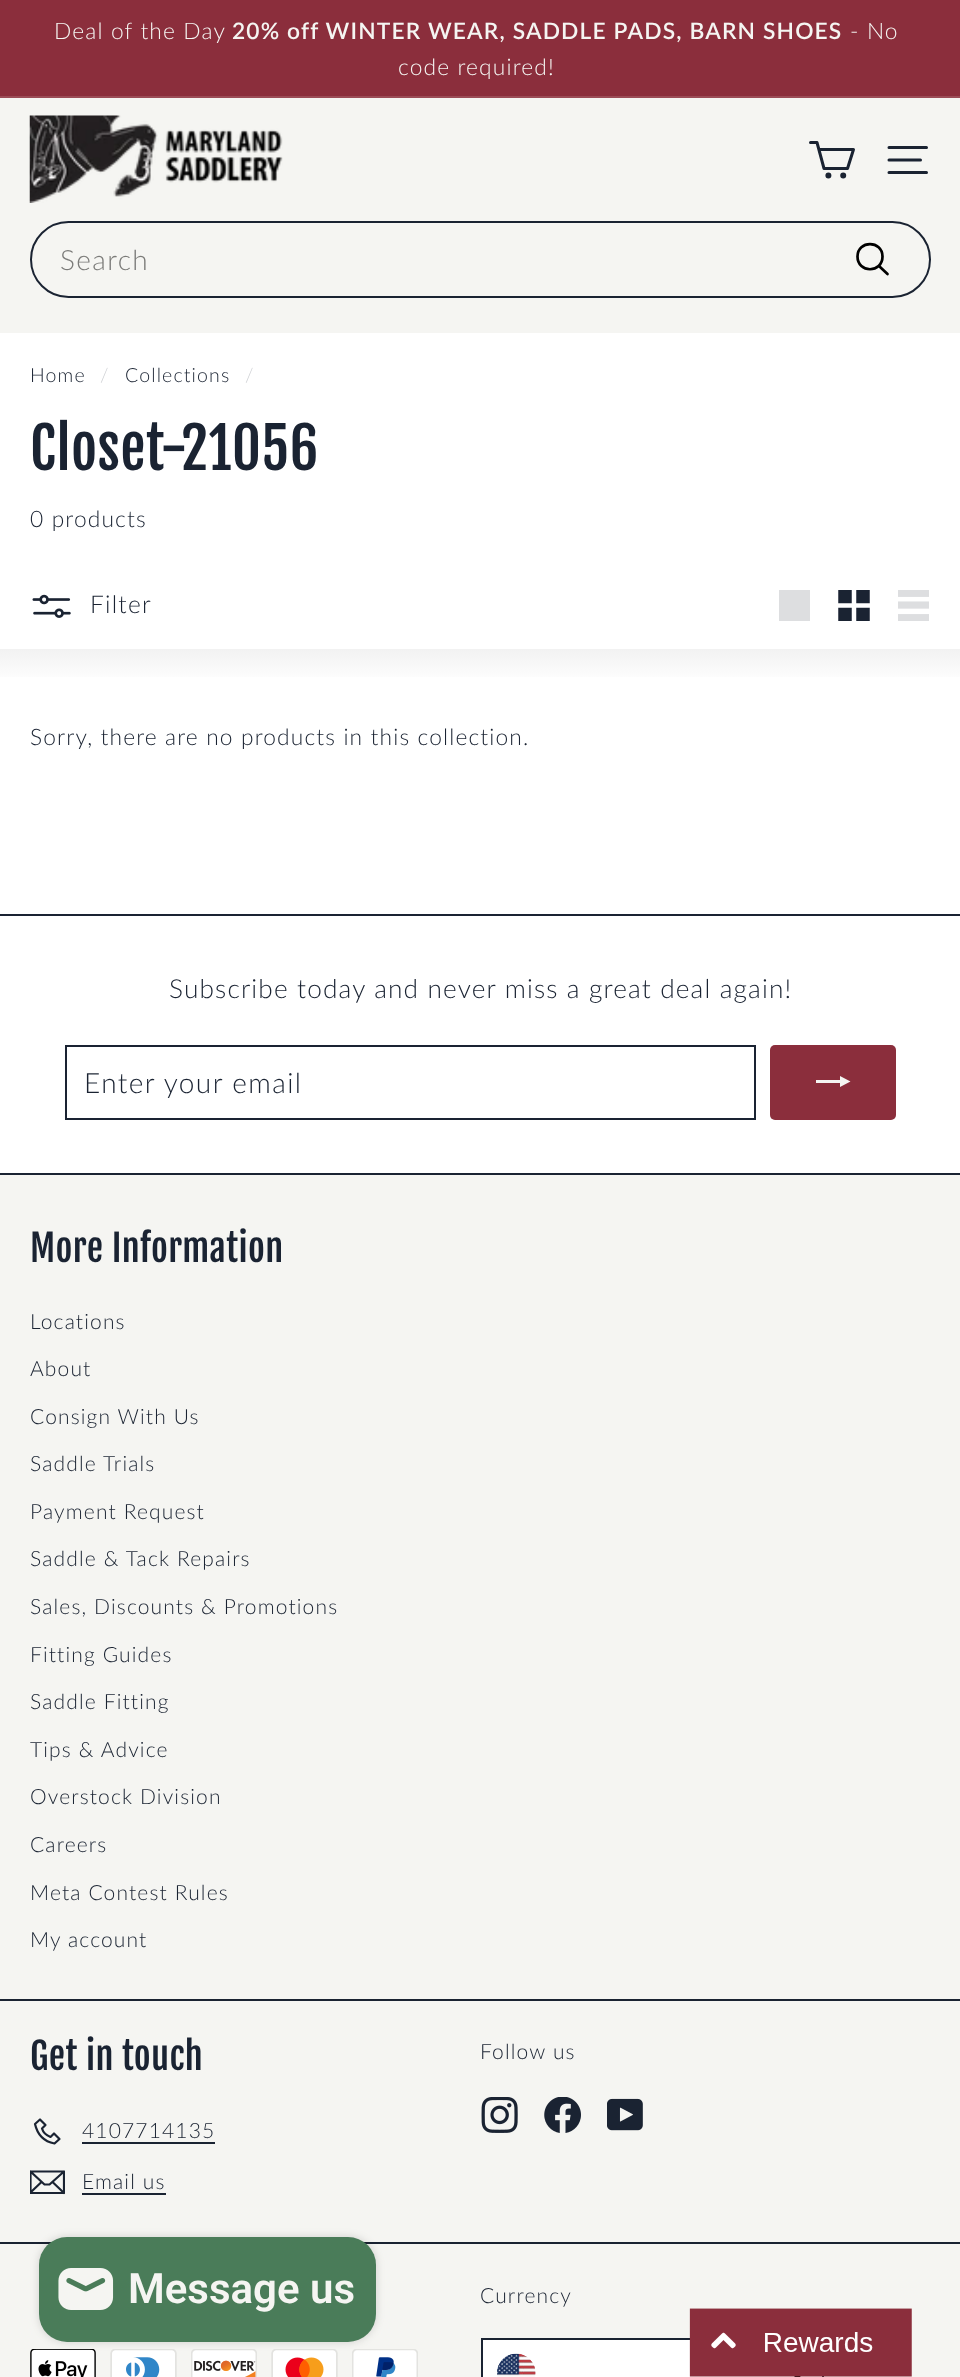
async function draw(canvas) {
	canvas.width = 960;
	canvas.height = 2377;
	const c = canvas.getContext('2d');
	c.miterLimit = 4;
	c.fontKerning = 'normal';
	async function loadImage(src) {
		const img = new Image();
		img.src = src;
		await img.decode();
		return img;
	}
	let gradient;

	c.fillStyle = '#fff';
	c.fillRect(0, 0, 960, 2377);
	c.fillStyle = '#8b2e3c';
	c.fillRect(0, 0, 960, 96);
	c.letterSpacing = '1.15px';
	c.font = '300 22.75px Lato';
	c.fillStyle = '#f5f5f2';
	c.fillText('Deal of the Day', 54, 39);
	c.font = '600 22.75px Lato';
	c.fillText('20% off WINTER WEAR, SADDLE PADS, BARN SHOES', 232, 39);
	c.font = '300 22.75px Lato';
	c.fillText('- No', 850, 39);
	c.fillText('code required!', 398, 75);
	c.fillStyle = '#9b4c57';
	c.fillRect(0, 96, 960, 2);
	c.fillStyle = '#f5f5f2';
	c.fillRect(0, 98, 960, 235);
	c.drawImage(await loadImage('img1.png'), 29, 115, 254, 88);
	c.beginPath();
	c.moveTo(819, 149.5);
	c.lineTo(853.5, 149.5);
	c.lineTo(847.5, 168.5);
	c.lineTo(824, 168.5);
	c.lineTo(817, 142.5);
	c.lineTo(810.5, 142.5);
	c.strokeStyle = '#1a2332';
	c.lineWidth = 3;
	c.lineCap = 'round';
	c.lineJoin = 'round';
	c.stroke();
	c.beginPath();
	c.arc(828.4, 175.6, 1.5, 0, 2 * Math.PI);
	c.stroke();
	c.beginPath();
	c.arc(843.2, 175.6, 1.5, 0, 2 * Math.PI);
	c.stroke();
	c.beginPath();
	c.moveTo(889, 147.5);
	c.lineTo(926.5, 147.5);
	c.moveTo(889, 160);
	c.lineTo(920.5, 160);
	c.moveTo(889, 172.5);
	c.lineTo(926.5, 172.5);
	c.stroke();
	c.beginPath();
	c.roundRect(31, 222, 899, 75, 37.5);
	c.lineWidth = 2;
	c.lineJoin = 'miter';
	c.stroke();
	c.letterSpacing = '1.4px';
	c.font = '300 28px Lato';
	c.fillStyle = '#7b7b79';
	c.fillText('Search', 60, 270);
	c.beginPath();
	c.moveTo(882.5, 256.5);
	c.bezierCurveTo(882.5, 273.5, 857.5, 273.5, 857.5, 256.5);
	c.bezierCurveTo(857.5, 240, 882.5, 240, 882.5, 256.5);
	c.closePath();
	c.moveTo(887.5, 274);
	c.lineTo(879, 266);
	c.strokeStyle = '#000';
	c.lineWidth = 2.7;
	c.lineJoin = 'round';
	c.stroke();
	c.letterSpacing = '1.15px';
	c.font = '300 19.5px Lato';
	c.fillStyle = '#1a2332';
	c.fillText('Home', 30, 382);
	c.fillStyle = '#d1d3d6';
	c.fillText('/', 100, 382);
	c.fillStyle = '#1a2332';
	c.fillText('Collections', 125, 382);
	c.fillStyle = '#d1d3d6';
	c.fillText('/', 245, 382);
	c.letterSpacing = '0.5px';
	c.font = '56.5px Fjalla One';
	c.fillStyle = '#1a2332';
	c.fillText('Closet-21056', 30, 470);
	c.letterSpacing = '1.15px';
	c.font = '300 22.75px Lato';
	c.fillText('0 products', 30, 527);
	c.drawImage(await loadImage('img2.png'), 32, 594, 39, 24);
	c.letterSpacing = '1.25px';
	c.font = '300 24.5px Lato';
	c.fillText('Filter', 90, 613);
	c.fillStyle = '#dddee0';
	c.fillRect(779, 590, 31, 31);
	c.drawImage(await loadImage('img3.png'), 838, 590, 32, 31);
	c.drawImage(await loadImage('img4.png'), 898, 590, 31, 31);
	gradient = c.createLinearGradient(480, 649, 480, 684);
	gradient.addColorStop(0, '#f2f2f2');
	gradient.addColorStop(1, '#fff');
	c.fillStyle = gradient;
	c.fillRect(0, 649, 960, 28);
	c.letterSpacing = '1.15px';
	c.font = '300 22.75px Lato';
	c.fillStyle = '#1a2332';
	c.fillText('Sorry, there are no products in this collection.', 30, 745);
	c.fillRect(0, 914, 960, 2);
	c.font = '300 26.25px Lato';
	c.fillText('Subscribe today and never miss a great deal again!', 169, 998);
	c.strokeStyle = '#1a2332';
	c.lineWidth = 2;
	c.lineJoin = 'miter';
	c.strokeRect(66, 1046, 689, 73);
	c.letterSpacing = '1.4px';
	c.font = '300 28px Lato';
	c.fillText('Enter your email', 84, 1093);
	c.fillStyle = '#8b2e3c';
	c.beginPath();
	c.roundRect(770, 1045, 126, 75, 5);
	c.fill();
	c.save();
	c.beginPath();
	c.rect(816, 1064, 35, 35);
	c.clip();
	c.fillStyle = '#f5f5f2';
	c.beginPath();
	c.moveTo(815.5, 1083);
	c.lineTo(815.5, 1080);
	c.lineTo(840, 1080);
	c.lineTo(840, 1076);
	c.lineTo(850.5, 1081.5);
	c.lineTo(840, 1087);
	c.lineTo(840, 1083);
	c.closePath();
	c.fill();
	c.restore();
	c.fillStyle = '#f5f5f2';
	c.fillRect(0, 1175, 960, 1202);
	c.fillStyle = '#1a2332';
	c.fillRect(0, 1173, 960, 2);
	c.letterSpacing = '0.4px';
	c.font = '36.5px Fjalla One';
	c.fillText('More Information', 30, 1262);
	c.letterSpacing = '1.15px';
	c.font = '300 21px Lato';
	for (const [text, x, y] of [
		['Locations', 30, 1329],
		['About', 30, 1376],
		['Consign With Us', 30, 1424],
		['Saddle Trials', 30, 1471],
		['Payment Request', 30, 1519],
		['Saddle & Tack Repairs', 30, 1566],
		['Sales, Discounts & Promotions', 30, 1614],
		['Fitting Guides', 30, 1662],
		['Saddle Fitting', 30, 1709],
		['Tips & Advice', 30, 1757],
		['Overstock Division', 30, 1804],
		['Careers', 30, 1852],
		['Meta Contest Rules', 30, 1900],
		['My account', 30, 1947],
	]) {
		c.fillText(text, x, y);
	}
	c.fillRect(0, 1999, 960, 2);
	c.letterSpacing = '0.4px';
	c.font = '36.5px Fjalla One';
	c.fillText('Get in touch', 30, 2070);
	c.beginPath();
	c.moveTo(40, 2119.5);
	c.lineTo(45.5, 2125);
	c.lineTo(42, 2128.5);
	c.bezierCurveTo(43, 2132, 45.5, 2135, 50.5, 2137);
	c.lineTo(54, 2133.5);
	c.lineTo(59.5, 2139);
	c.lineTo(54.5, 2143.5);
	c.bezierCurveTo(44, 2141.5, 37.5, 2135, 35, 2124);
	c.closePath();
	c.lineWidth = 2.2;
	c.lineJoin = 'round';
	c.stroke();
	c.letterSpacing = '1.15px';
	c.font = '300 21px Lato';
	c.fillText('4107714135', 82, 2138);
	c.fillRect(82, 2142, 133, 2);
	c.save();
	c.beginPath();
	c.rect(30, 2165, 35, 35);
	c.clip();
	c.beginPath();
	c.moveTo(64, 2193);
	c.lineTo(30.5, 2193);
	c.lineTo(30.5, 2171.5);
	c.lineTo(64, 2171.5);
	c.closePath();
	c.moveTo(30.5, 2171.5);
	c.lineTo(44.5, 2184.5);
	c.lineTo(49.5, 2184.5);
	c.lineTo(64, 2171.5);
	c.moveTo(41.5, 2182);
	c.lineTo(30.5, 2192.5);
	c.moveTo(64, 2193);
	c.lineTo(52.5, 2182);
	c.stroke();
	c.restore();
	c.fillText('Email us', 82, 2189);
	c.fillRect(82, 2193, 84, 2);
	c.fillText('Follow us', 480, 2059);
	c.drawImage(await loadImage('img5.png'), 481, 2097, 37, 36);
	c.drawImage(await loadImage('img6.png'), 544, 2097, 37, 36);
	c.drawImage(await loadImage('img7.png'), 607, 2098, 36, 33);
	c.fillRect(0, 2242, 960, 2);
	c.fillText('Currency', 480, 2303);
	c.fillStyle = '#fff';
	c.beginPath();
	c.rect(482, 2339, 341, 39);
	c.fill();
	c.lineWidth = 2;
	c.lineJoin = 'miter';
	c.stroke();
	c.drawImage(await loadImage('img8.png'), 497, 2353, 39, 24);
	c.drawImage(await loadImage('img9.png'), 497, 2353, 39, 22);
	c.beginPath();
	c.moveTo(788.5, 2368.5);
	c.lineTo(797.5, 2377.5);
	c.lineTo(806, 2368.5);
	c.strokeStyle = '#000';
	c.lineWidth = 2.8;
	c.lineJoin = 'round';
	c.stroke();
	c.drawImage(await loadImage('img10.png'), 30, 2349, 66, 28);
	c.drawImage(await loadImage('img11.png'), 110, 2349, 67, 28);
	c.drawImage(await loadImage('img12.png'), 191, 2349, 66, 28);
	c.drawImage(await loadImage('img13.png'), 271, 2349, 67, 28);
	c.drawImage(await loadImage('img14.png'), 352, 2349, 66, 28);
	c.fillStyle = '#00000026';
	c.filter = 'blur(4.5px)';
	c.beginPath();
	c.roundRect(39, 2237, 337, 105, 28);
	c.fill();
	c.filter = 'none';
	c.fillStyle = '#4a7c59';
	c.beginPath();
	c.roundRect(39, 2237, 337, 105, 28);
	c.fill();
	c.drawImage(await loadImage('img15.png'), 58, 2268, 56, 42);
	c.letterSpacing = '0px';
	c.font = '600 42px Roboto';
	c.fillStyle = '#f5f5f2';
	c.fillText('Message us', 128, 2303);
	c.drawImage(await loadImage('img16.png'), 689, 2308, 223, 69);
}

draw(document.querySelector('canvas'));
